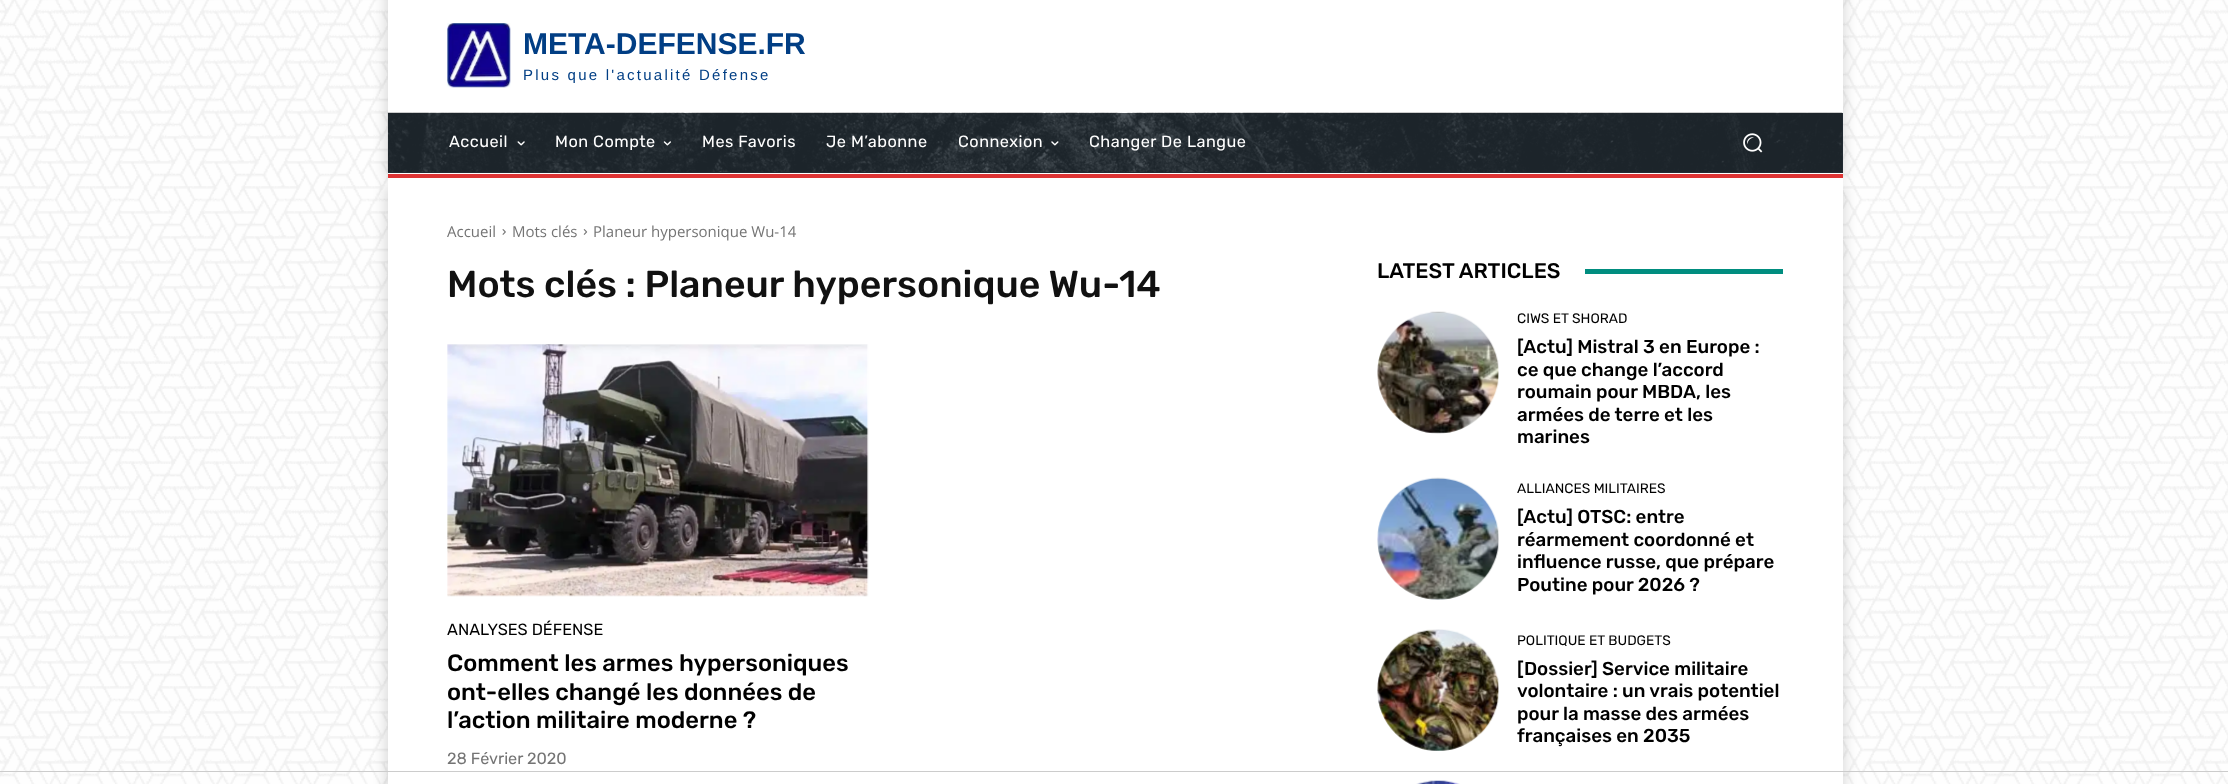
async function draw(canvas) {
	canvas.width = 2228;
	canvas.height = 784;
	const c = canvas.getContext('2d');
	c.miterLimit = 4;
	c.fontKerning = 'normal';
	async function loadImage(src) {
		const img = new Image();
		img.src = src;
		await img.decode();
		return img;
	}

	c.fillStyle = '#fff';
	c.fillRect(0, 0, 2228, 784);
	c.drawImage(await loadImage('img1.png'), 0, 0, 2228, 784);
	c.fillStyle = '#0000001f';
	c.filter = 'blur(6px)';
	c.beginPath();
	c.rect(384, 186, 1462, 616);
	c.fill();
	c.filter = 'none';
	c.fillStyle = '#fff';
	c.fillRect(388, 190, 1455, 594);
	c.fillStyle = '#0000001f';
	c.filter = 'blur(6px)';
	c.beginPath();
	c.rect(384, -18, 1462, 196);
	c.fill();
	c.filter = 'none';
	c.fillStyle = '#fff';
	c.fillRect(388, 0, 1455, 190);
	c.drawImage(await loadImage('img2.png'), 447, 23, 64, 65);
	c.font = 'bold 30px Liberation Sans';
	c.fillStyle = '#013e84';
	c.fillText('META-DEFENSE.FR', 523, 54);
	c.letterSpacing = '2.25px';
	c.font = '15px Liberation Sans';
	c.fillText('Plus que l\'actualité Défense', 523, 80);
	c.fillStyle = '#232d35';
	c.fillRect(388, 113, 1455, 60);
	c.drawImage(await loadImage('img3.png'), 387, 112, 1456, 60);
	c.letterSpacing = '0.5px';
	c.font = '16.25px Rubik';
	c.fillStyle = '#fff';
	c.fillText('Accueil', 449, 147);
	c.drawImage(await loadImage('img4.png'), 517, 141, 8, 5);
	c.fillText('Mon Compte', 555, 147);
	c.drawImage(await loadImage('img5.png'), 663, 141, 8, 5);
	for (const [text, x, y] of [
		['Mes Favoris', 702, 147],
		['Je M’abonne', 826, 147],
		['Connexion', 958, 147],
	]) {
		c.fillText(text, x, y);
	}
	c.drawImage(await loadImage('img6.png'), 1051, 141, 8, 5);
	c.fillText('Changer De Langue', 1089, 147);
	c.drawImage(await loadImage('img7.png'), 1743, 133, 20, 20);
	c.fillStyle = '#d33';
	c.fillRect(388, 174, 1455, 4);
	c.letterSpacing = '0px';
	c.font = '15px Open Sans';
	c.fillStyle = '#747474';
	c.fillText('Accueil', 447, 237);
	c.drawImage(await loadImage('img8.png'), 502, 229, 4, 6);
	c.fillText('Mots clés', 512, 237);
	c.drawImage(await loadImage('img9.png'), 583, 229, 5, 6);
	c.fillText('Planeur hypersonique Wu-14', 593, 237);
	c.font = '500 37.5px Rubik';
	c.fillStyle = '#111';
	c.fillText('Mots clés : Planeur hypersonique Wu-14', 447, 297);
	c.drawImage(await loadImage('img10.png'), 447, 344, 422, 253);
	c.font = '16.25px Rubik';
	c.fillStyle = '#000';
	c.fillText('ANALYSES DÉFENSE', 447, 635);
	c.font = '500 23.75px Rubik';
	for (const [text, x, y] of [
		['Comment les armes hypersoniques', 447, 671],
		['ont-elles changé les données de', 447, 700],
		['l’action militaire moderne ?', 447, 728],
	]) {
		c.fillText(text, x, y);
	}
	c.font = '16.25px Rubik';
	c.fillStyle = '#747474';
	c.fillText('28 Février 2020', 447, 764);
	c.font = '500 21.25px Rubik';
	c.fillStyle = '#000';
	c.fillText('LATEST ARTICLES', 1377, 278);
	c.fillStyle = '#008d7f';
	c.fillRect(1585, 269, 198, 5);
	c.drawImage(await loadImage('img11.png'), 1377, 311, 122, 123);
	c.font = '13.75px Rubik';
	c.fillStyle = '#000';
	c.fillText('CIWS ET SHORAD', 1517, 323);
	c.font = '500 18.75px Rubik';
	for (const [text, x, y] of [
		['[Actu] Mistral 3 en Europe :', 1517, 353],
		['ce que change l’accord', 1517, 376],
		['roumain pour MBDA, les', 1517, 398],
		['armées de terre et les', 1517, 421],
		['marines', 1517, 443],
	]) {
		c.fillText(text, x, y);
	}
	c.drawImage(await loadImage('img12.png'), 1377, 477, 122, 123);
	c.font = '13.75px Rubik';
	c.fillText('ALLIANCES MILITAIRES', 1517, 493);
	c.font = '500 18.75px Rubik';
	for (const [text, x, y] of [
		['[Actu] OTSC: entre', 1517, 523],
		['réarmement coordonné et', 1517, 546],
		['influence russe, que prépare', 1517, 568],
		['Poutine pour 2026 ?', 1517, 591],
	]) {
		c.fillText(text, x, y);
	}
	c.drawImage(await loadImage('img13.png'), 1377, 629, 122, 122);
	c.font = '13.75px Rubik';
	c.fillText('POLITIQUE ET BUDGETS', 1517, 645);
	c.font = '500 18.75px Rubik';
	for (const [text, x, y] of [
		['[Dossier] Service militaire', 1517, 675],
		['volontaire : un vrais potentiel', 1517, 697],
		['pour la masse des armées', 1517, 720],
		['françaises en 2035', 1517, 742],
	]) {
		c.fillText(text, x, y);
	}
	c.drawImage(await loadImage('img14.png'), 1416, 780, 44, 4);
	c.fillStyle = '#ccc';
	c.fillRect(0, 771, 2228, 1);
}

draw(document.querySelector('canvas'));
